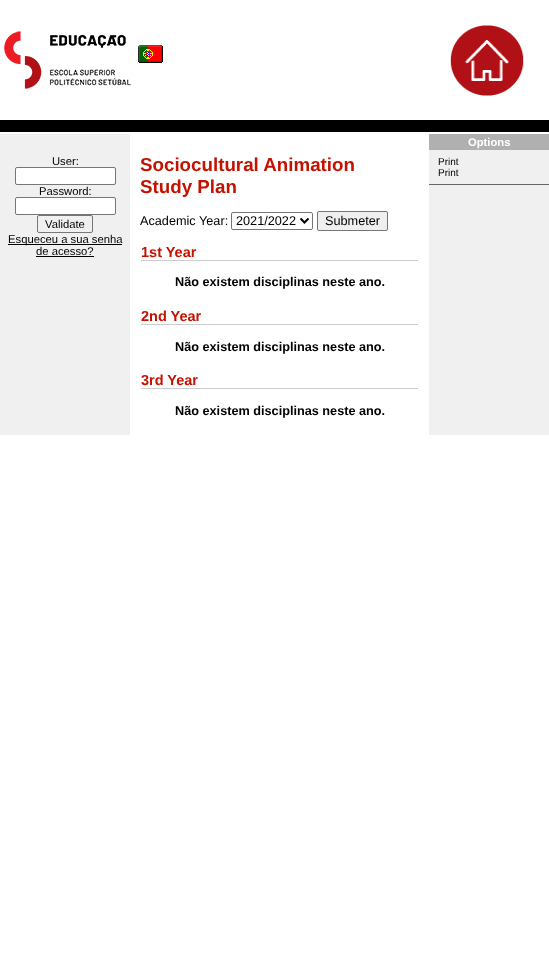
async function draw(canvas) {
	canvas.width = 549;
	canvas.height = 953;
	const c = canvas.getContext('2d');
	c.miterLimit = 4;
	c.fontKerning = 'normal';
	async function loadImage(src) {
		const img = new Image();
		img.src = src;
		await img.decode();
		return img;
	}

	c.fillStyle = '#fff';
	c.fillRect(0, 0, 549, 953);
	c.drawImage(await loadImage('img1.png'), 4, 31, 127, 58);
	c.drawImage(await loadImage('img2.png'), 138, 45, 25, 18);
	c.drawImage(await loadImage('img3.png'), 449, 25, 75, 71);
	c.fillStyle = '#000';
	c.fillRect(0, 120, 549, 12);
	c.fillStyle = '#f0f0f0';
	c.fillRect(0, 134, 130, 301);
	c.font = '11.25px Liberation Sans';
	c.fillStyle = '#000';
	c.fillText('User:', 52, 165);
	c.fillStyle = '#fff';
	c.beginPath();
	c.roundRect(15.5, 167.5, 100, 17, 1.5);
	c.fill();
	c.strokeStyle = '#767676';
	c.stroke();
	c.fillStyle = '#000';
	c.fillText('Password:', 39, 195);
	c.fillStyle = '#fff';
	c.beginPath();
	c.roundRect(15.5, 197.5, 100, 17, 1.5);
	c.fill();
	c.stroke();
	c.beginPath();
	c.roundRect(37.5, 215.5, 55, 17, 1.5);
	c.stroke();
	c.fillStyle = '#000';
	c.fillText('Validate', 45, 228);
	c.fillRect(8, 244, 114, 1);
	c.fillText('Esqueceu a sua senha', 8, 243);
	c.fillText('de acesso?', 36, 255);
	c.fillRect(36, 256, 58, 1);
	c.font = 'bold 18.75px Liberation Sans';
	c.fillStyle = '#c41200';
	c.fillText('Sociocultural Animation', 140, 171);
	c.fillText('Study Plan', 140, 193);
	c.font = '12.7px Liberation Sans';
	c.fillStyle = '#000';
	c.fillText('Academic Year:', 140, 225);
	c.beginPath();
	c.roundRect(231.5, 212.5, 81, 17, 1.5);
	c.stroke();
	c.beginPath();
	c.moveTo(300.5, 218.5);
	c.lineTo(304.5, 222.5);
	c.lineTo(308.5, 218.5);
	c.strokeStyle = '#000';
	c.lineWidth = 2;
	c.stroke();
	c.fillText('2021/2022', 236, 225);
	c.fillStyle = '#efefef';
	c.beginPath();
	c.roundRect(317.5, 211.5, 70, 19, 1.5);
	c.fill();
	c.strokeStyle = '#767676';
	c.lineWidth = 1;
	c.stroke();
	c.fillStyle = '#000';
	c.fillText('Submeter', 325, 225);
	c.fillStyle = '#ccc';
	c.fillRect(141, 260, 277, 1);
	c.font = 'bold 14.5px Liberation Sans';
	c.fillStyle = '#c41200';
	c.fillText('1st Year', 141, 257);
	c.font = 'bold 12.7px Liberation Sans';
	c.fillStyle = '#000';
	c.fillText('Não existem disciplinas neste ano.', 175, 286);
	c.fillStyle = '#ccc';
	c.fillRect(141, 324, 277, 1);
	c.font = 'bold 14.5px Liberation Sans';
	c.fillStyle = '#c41200';
	c.fillText('2nd Year', 141, 321);
	c.font = 'bold 12.7px Liberation Sans';
	c.fillStyle = '#000';
	c.fillText('Não existem disciplinas neste ano.', 175, 351);
	c.fillStyle = '#ccc';
	c.fillRect(141, 388, 277, 1);
	c.font = 'bold 14.5px Liberation Sans';
	c.fillStyle = '#c41200';
	c.fillText('3rd Year', 141, 385);
	c.font = 'bold 12.7px Liberation Sans';
	c.fillStyle = '#000';
	c.fillText('Não existem disciplinas neste ano.', 175, 415);
	c.fillStyle = '#f0f0f0';
	c.fillRect(429, 150, 120, 285);
	c.fillStyle = '#b0b0b0';
	c.fillRect(429, 134, 120, 16);
	c.font = 'bold 11.25px Liberation Sans';
	c.fillStyle = '#fff';
	c.fillText('Options', 468, 146);
	c.fillStyle = '#666';
	c.fillRect(429, 184, 120, 1);
	c.font = '10px Liberation Sans';
	c.fillStyle = '#000';
	c.fillText('Print', 438, 165);
	c.fillText('Print', 438, 176);
}

draw(document.querySelector('canvas'));
